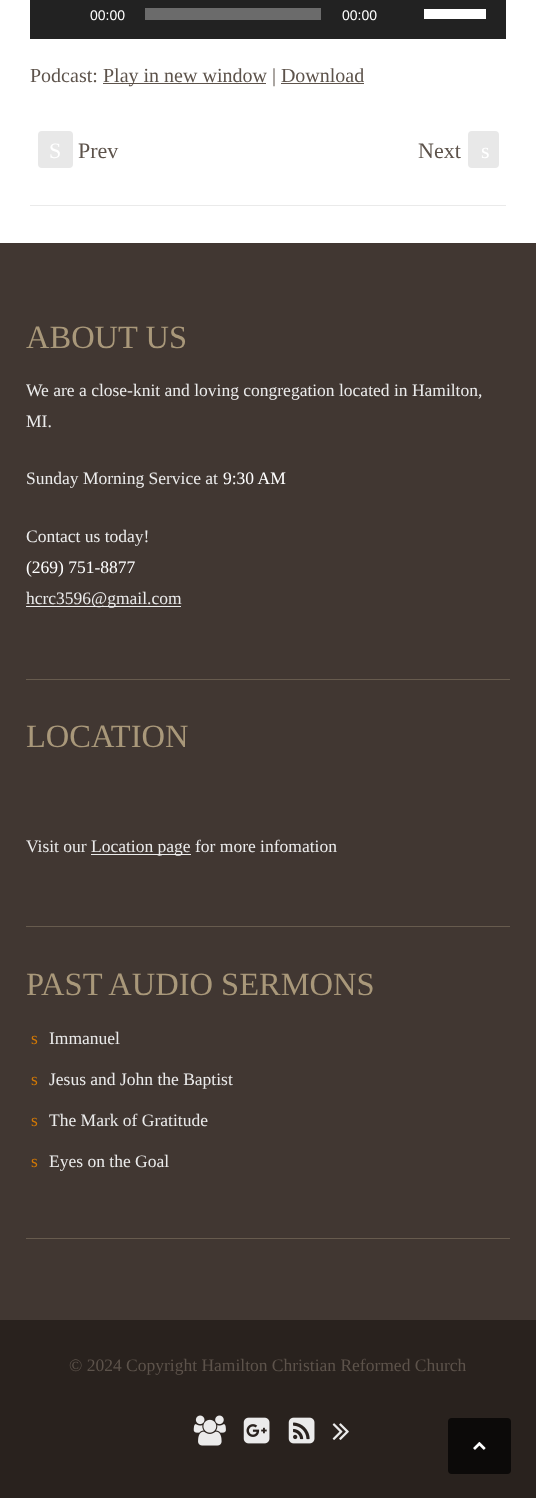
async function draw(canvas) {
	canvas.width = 536;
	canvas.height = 1498;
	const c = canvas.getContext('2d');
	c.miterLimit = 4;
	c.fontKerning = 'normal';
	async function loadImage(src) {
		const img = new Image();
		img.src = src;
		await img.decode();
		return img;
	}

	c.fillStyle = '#fff';
	c.fillRect(0, 0, 536, 1498);
	c.fillStyle = '#222';
	c.fillRect(30, 0, 476, 39);
	c.font = '14px Liberation Sans';
	c.fillStyle = '#fff';
	c.fillText('00:00', 90, 20);
	c.fillStyle = '#6b6b6b';
	c.fillRect(145, 8, 176, 12);
	c.fillStyle = '#fff';
	c.fillText('00:00', 342, 20);
	c.fillRect(424, 9, 62, 10);
	c.font = '20px Liberation Serif';
	c.fillStyle = '#5d534b';
	c.fillText('Podcast:', 30, 82);
	c.fillRect(103, 83, 163, 1);
	c.fillText('Play in new window | Download', 103, 82);
	c.fillRect(281, 83, 83, 1);
	c.fillStyle = '#e8e8e8';
	c.beginPath();
	c.roundRect(38, 131, 35, 37, 4);
	c.fill();
	c.font = '22px Liberation Serif';
	c.fillStyle = '#fff';
	c.fillText('S', 49, 158);
	c.fillStyle = '#5d534b';
	c.fillText('Prev', 78, 158);
	c.fillText('Next', 418, 158);
	c.fillStyle = '#e8e8e8';
	c.beginPath();
	c.roundRect(468, 131, 31, 37, 4);
	c.fill();
	c.fillStyle = '#fff';
	c.fillText('s', 481, 158);
	for (const [x, y, w, h, color] of [
		[30, 205, 476, 1, '#eaeaea'],
		[0, 243, 536, 1077, '#413732'],
		[26, 679, 484, 1, '#675b4e'],
	]) {
		c.fillStyle = color;
		c.fillRect(x, y, w, h);
	}
	c.font = '32.5px Liberation Serif';
	c.fillStyle = '#a9987a';
	c.fillText('ABOUT US', 26, 348);
	c.font = '17.5px Liberation Serif';
	c.fillStyle = '#ebebeb';
	for (const [text, x, y] of [
		['We are a close-knit and loving congregation located in Hamilton,', 26, 396],
		['MI.', 26, 427],
		['Sunday Morning Service at', 26, 484],
	]) {
		c.fillText(text, x, y);
	}
	c.fillStyle = '#fff';
	c.fillText('9:30 AM', 223, 484);
	c.fillStyle = '#ebebeb';
	c.fillText('Contact us today!', 26, 542);
	c.fillStyle = '#fff';
	c.fillText('(269) 751-8877', 26, 573);
	c.fillStyle = '#ebebeb';
	c.fillRect(26, 606, 155, 1);
	c.fillText('hcrc3596@gmail.com', 26, 604);
	c.fillStyle = '#675b4e';
	c.fillRect(26, 926, 484, 1);
	c.font = '32.5px Liberation Serif';
	c.fillStyle = '#a9987a';
	c.fillText('LOCATION', 26, 747);
	c.font = '17.5px Liberation Serif';
	c.fillStyle = '#ebebeb';
	c.fillText('Visit our', 26, 852);
	c.fillRect(91, 854, 100, 1);
	c.fillText('Location page for more infomation', 91, 852);
	c.fillStyle = '#675b4e';
	c.fillRect(26, 1238, 484, 1);
	c.font = '32.5px Liberation Serif';
	c.fillStyle = '#a9987a';
	c.fillText('PAST AUDIO SERMONS', 26, 995);
	c.font = '17.5px Liberation Serif';
	c.fillStyle = '#d27805';
	c.fillText('s', 31, 1044);
	c.fillStyle = '#ebebeb';
	c.fillText('Immanuel', 49, 1044);
	c.fillStyle = '#d27805';
	c.fillText('s', 31, 1085);
	c.fillStyle = '#ebebeb';
	c.fillText('Jesus and John the Baptist', 49, 1085);
	c.fillStyle = '#d27805';
	c.fillText('s', 31, 1126);
	c.fillStyle = '#ebebeb';
	c.fillText('The Mark of Gratitude', 49, 1126);
	c.fillStyle = '#d27805';
	c.fillText('s', 31, 1167);
	c.fillStyle = '#ebebeb';
	c.fillText('Eyes on the Goal', 49, 1167);
	c.fillStyle = '#29221e';
	c.fillRect(0, 1320, 536, 178);
	c.fillStyle = '#5d534b';
	c.fillText('© 2024 Copyright Hamilton Christian Reformed Church', 69, 1371);
	c.drawImage(await loadImage('img1.png'), 193, 1415, 33, 31);
	c.drawImage(await loadImage('img2.png'), 243, 1417, 27, 27);
	c.drawImage(await loadImage('img3.png'), 288, 1417, 27, 27);
	c.drawImage(await loadImage('img4.png'), 332, 1423, 17, 17);
	c.fillStyle = '#0c0a09';
	c.beginPath();
	c.roundRect(448, 1418, 63, 56, 4);
	c.fill();
	c.drawImage(await loadImage('img5.png'), 473, 1441, 13, 9);
}

draw(document.querySelector('canvas'));
